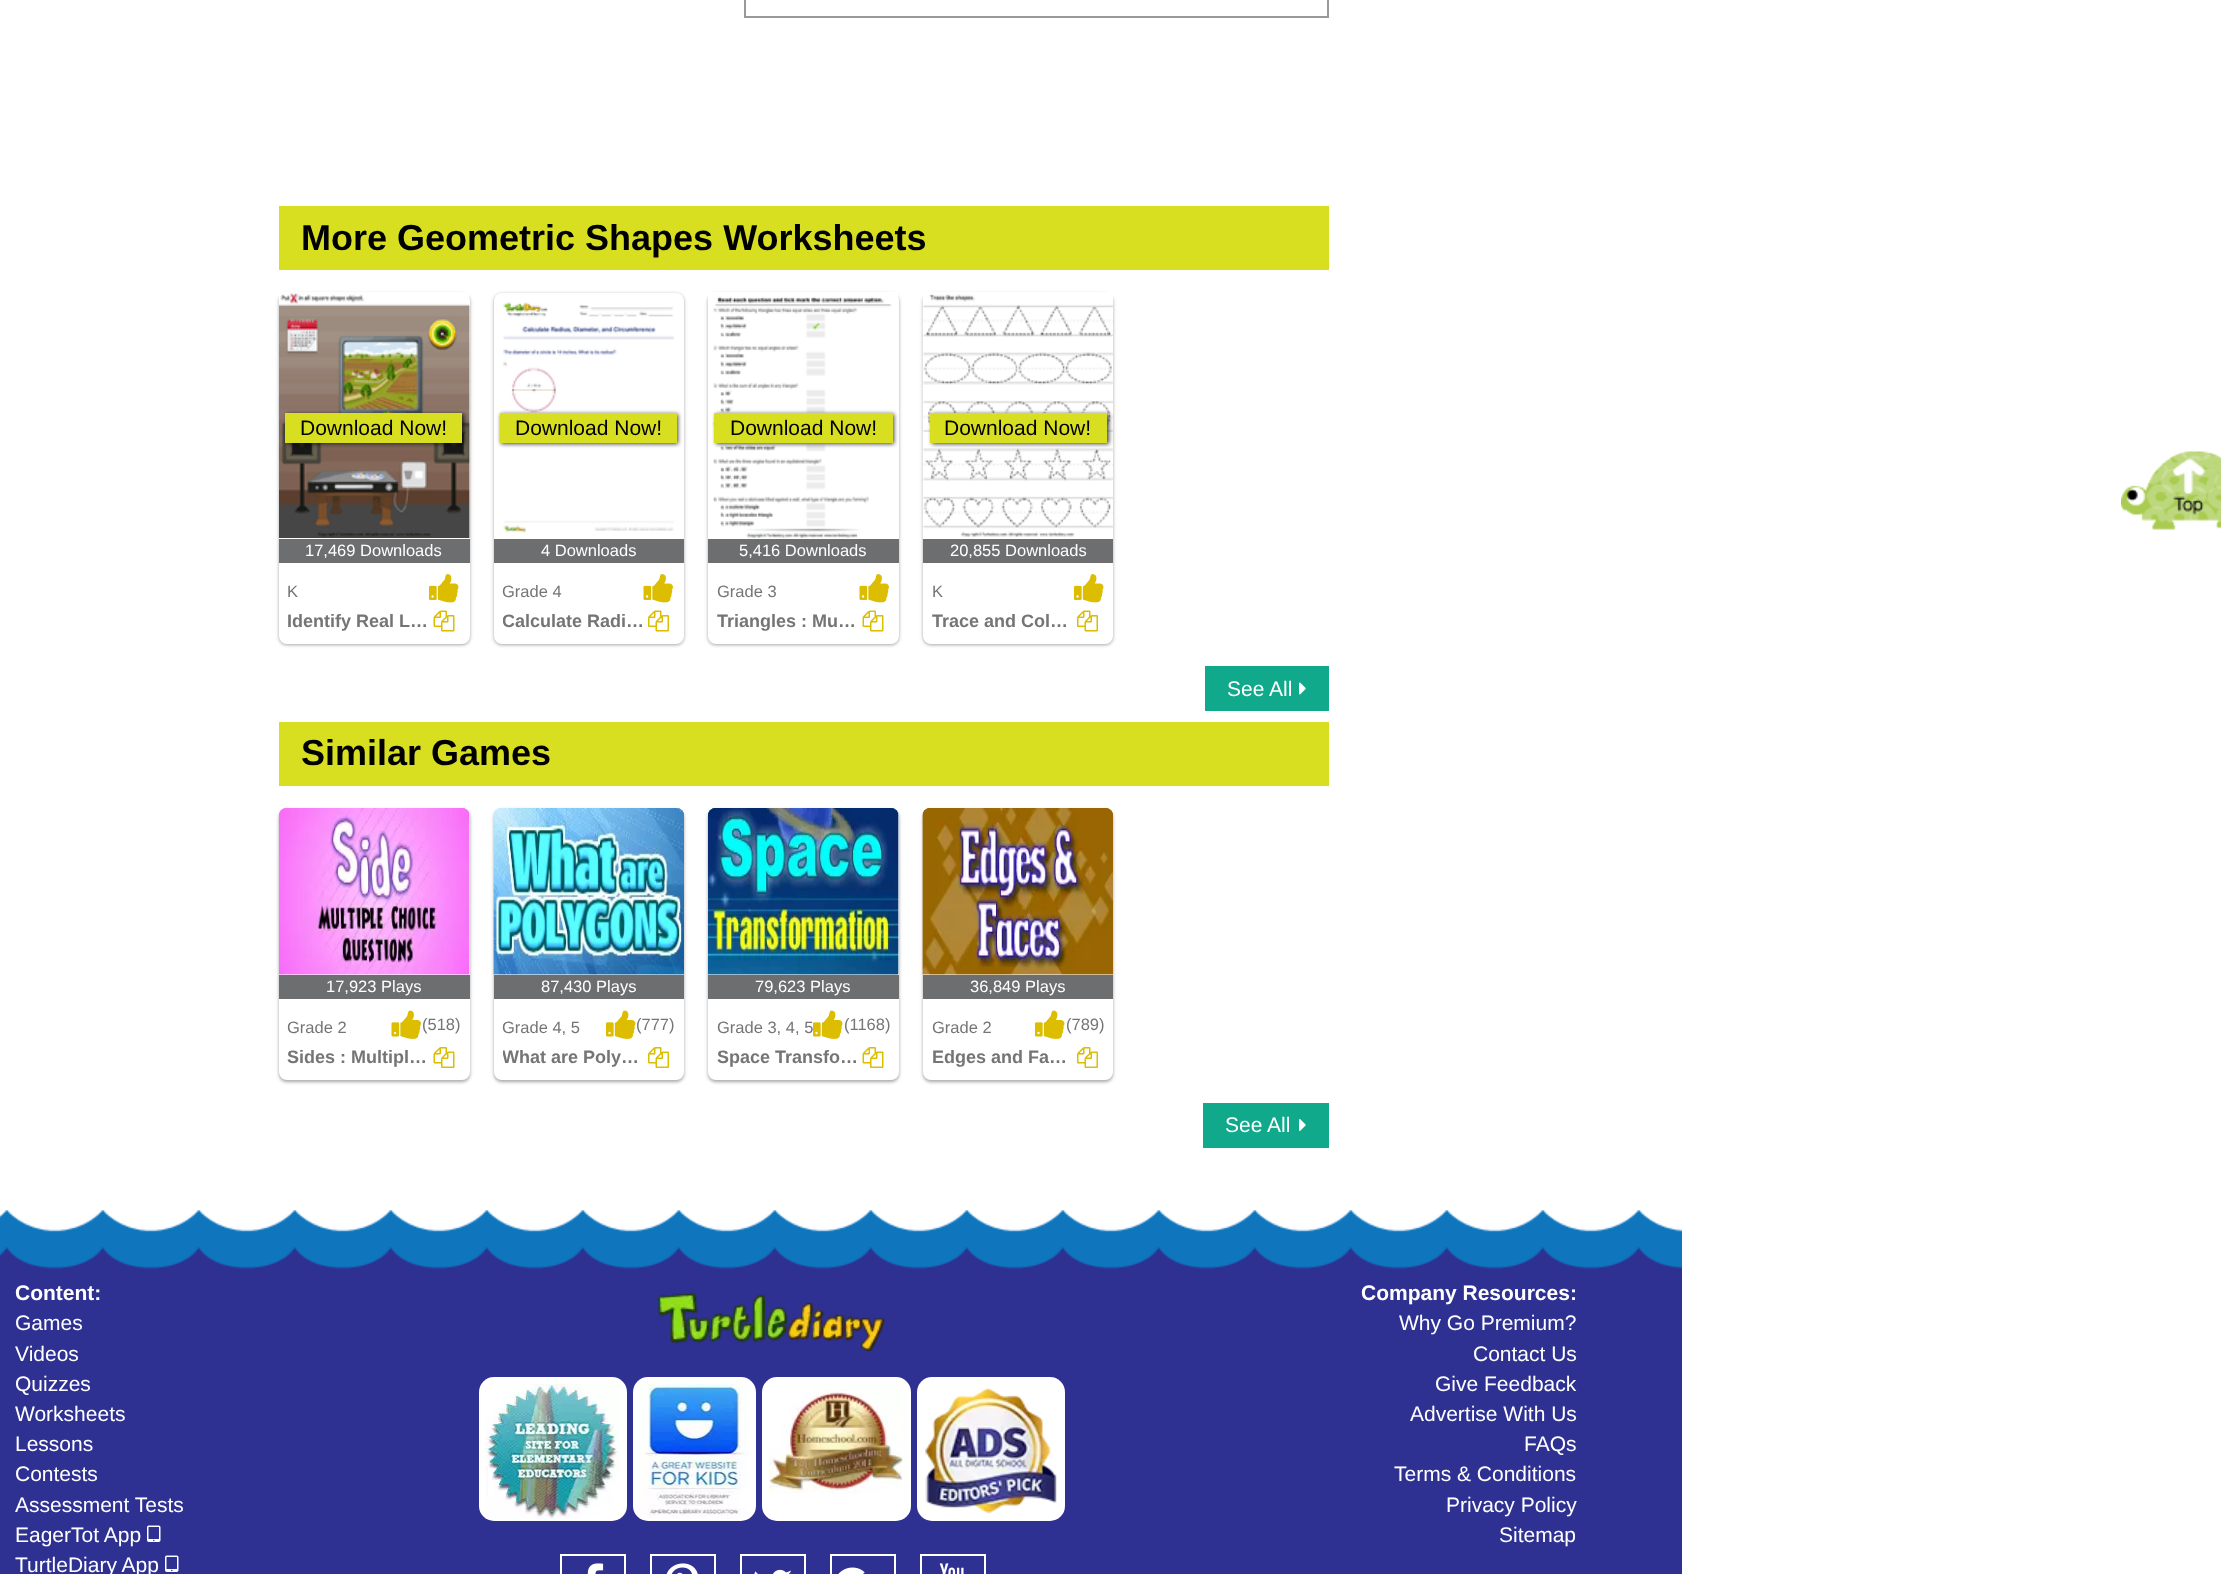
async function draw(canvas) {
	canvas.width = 2221;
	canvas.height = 1574;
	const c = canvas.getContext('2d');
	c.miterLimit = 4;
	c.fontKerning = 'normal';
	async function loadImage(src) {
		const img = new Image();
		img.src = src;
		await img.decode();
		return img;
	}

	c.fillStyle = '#fff';
	c.fillRect(0, 0, 2221, 1574);
	c.strokeStyle = '#999';
	c.lineWidth = 2;
	c.strokeRect(745, -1, 583, 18);
	c.fillStyle = '#d8df20';
	c.fillRect(279, 206, 1050, 64);
	c.font = 'bold 36px Liberation Sans';
	c.fillStyle = '#000';
	c.fillText('More Geometric Shapes Worksheets', 301, 250);
	c.fillStyle = '#0000003d';
	c.filter = 'blur(1.5px)';
	c.beginPath();
	c.roundRect(279, 294, 191, 351, 8);
	c.fill();
	c.filter = 'none';
	c.fillStyle = '#0000001f';
	c.filter = 'blur(2px)';
	c.beginPath();
	c.roundRect(279, 294, 191, 351, 8);
	c.fill();
	c.filter = 'none';
	c.fillStyle = '#fff';
	c.beginPath();
	c.roundRect(279, 293, 191, 351, 8);
	c.fill();
	c.drawImage(await loadImage('img1.png'), 279, 292, 191, 246);
	c.drawImage(await loadImage('img2.png'), 469, 305, 1, 233);
	c.fillStyle = '#000000bf';
	c.filter = 'blur(2px)';
	c.beginPath();
	c.rect(287, 414, 177, 30);
	c.fill();
	c.filter = 'none';
	c.fillStyle = '#d8df20';
	c.fillRect(285, 413, 177, 30);
	c.font = '21px Liberation Sans';
	c.fillStyle = '#000';
	c.fillText('Download Now!', 300, 435);
	c.fillStyle = '#6d6e70';
	c.fillRect(279, 539, 191, 24);
	c.font = '16.5px Liberation Sans';
	c.fillStyle = '#fff';
	c.fillText('17,469 Downloads', 305, 556);
	c.fillStyle = '#757577';
	c.fillText('K', 287, 597);
	c.drawImage(await loadImage('img3.png'), 429, 574, 30, 29);
	c.font = 'bold 18px Liberation Sans';
	c.fillText('Identify Real L…', 287, 627);
	c.drawImage(await loadImage('img4.png'), 433, 610, 22, 22);
	c.fillStyle = '#0000003d';
	c.filter = 'blur(1.5px)';
	c.beginPath();
	c.roundRect(494, 294, 190, 351, 8);
	c.fill();
	c.filter = 'none';
	c.fillStyle = '#0000001f';
	c.filter = 'blur(2px)';
	c.beginPath();
	c.roundRect(494, 294, 190, 351, 8);
	c.fill();
	c.filter = 'none';
	c.fillStyle = '#fff';
	c.beginPath();
	c.roundRect(494, 293, 190, 351, 8);
	c.fill();
	c.drawImage(await loadImage('img5.png'), 503, 302, 171, 231);
	c.drawImage(await loadImage('img6.png'), 503, 304, 171, 229);
	c.fillStyle = '#000000bf';
	c.filter = 'blur(2px)';
	c.beginPath();
	c.rect(501, 414, 177, 30);
	c.fill();
	c.filter = 'none';
	c.fillStyle = '#d8df20';
	c.fillRect(500, 413, 177, 30);
	c.font = '21px Liberation Sans';
	c.fillStyle = '#000';
	c.fillText('Download Now!', 515, 435);
	c.fillStyle = '#6d6e70';
	c.fillRect(494, 539, 190, 24);
	c.font = '16.5px Liberation Sans';
	c.fillStyle = '#fff';
	c.fillText('4 Downloads', 541, 556);
	c.fillStyle = '#757577';
	c.fillText('Grade 4', 502, 597);
	c.drawImage(await loadImage('img7.png'), 643, 574, 30, 29);
	c.save();
	c.beginPath();
	c.rect(503, 609, 142, 26);
	c.clip();
	c.font = 'bold 18px Liberation Sans';
	c.fillText('Calculate Radi…', 502, 627);
	c.restore();
	c.drawImage(await loadImage('img8.png'), 648, 610, 21, 22);
	c.fillStyle = '#0000003d';
	c.filter = 'blur(1.5px)';
	c.beginPath();
	c.roundRect(708, 294, 191, 351, 8);
	c.fill();
	c.filter = 'none';
	c.fillStyle = '#0000001f';
	c.filter = 'blur(2px)';
	c.beginPath();
	c.roundRect(708, 294, 191, 351, 8);
	c.fill();
	c.filter = 'none';
	c.fillStyle = '#fff';
	c.beginPath();
	c.roundRect(708, 293, 191, 351, 8);
	c.fill();
	c.drawImage(await loadImage('img9.png'), 708, 292, 191, 246);
	c.fillStyle = '#000000bf';
	c.filter = 'blur(2px)';
	c.beginPath();
	c.rect(716, 414, 178, 30);
	c.fill();
	c.filter = 'none';
	c.fillStyle = '#d8df20';
	c.fillRect(714, 413, 179, 30);
	c.font = '21px Liberation Sans';
	c.fillStyle = '#000';
	c.fillText('Download Now!', 730, 435);
	c.fillStyle = '#6d6e70';
	c.fillRect(708, 539, 191, 24);
	c.font = '16.5px Liberation Sans';
	c.fillStyle = '#fff';
	c.fillText('5,416 Downloads', 739, 556);
	c.fillStyle = '#757577';
	c.fillText('Grade 3', 717, 597);
	c.drawImage(await loadImage('img7.png'), 859, 574, 30, 29);
	c.font = 'bold 18px Liberation Sans';
	c.fillText('Triangles : Mu…', 717, 627);
	c.drawImage(await loadImage('img4.png'), 862, 610, 22, 22);
	c.fillStyle = '#0000003d';
	c.filter = 'blur(1.5px)';
	c.beginPath();
	c.roundRect(923, 294, 190, 351, 8);
	c.fill();
	c.filter = 'none';
	c.fillStyle = '#0000001f';
	c.filter = 'blur(2px)';
	c.beginPath();
	c.roundRect(923, 294, 190, 351, 8);
	c.fill();
	c.filter = 'none';
	c.fillStyle = '#fff';
	c.beginPath();
	c.roundRect(923, 293, 190, 351, 8);
	c.fill();
	c.drawImage(await loadImage('img10.png'), 922, 292, 191, 246);
	c.fillStyle = '#000000bf';
	c.filter = 'blur(2px)';
	c.beginPath();
	c.rect(932, 414, 177, 30);
	c.fill();
	c.filter = 'none';
	c.fillStyle = '#d8df20';
	c.fillRect(930, 413, 177, 30);
	c.font = '21px Liberation Sans';
	c.fillStyle = '#000';
	c.fillText('Download Now!', 944, 435);
	c.fillStyle = '#6d6e70';
	c.fillRect(923, 539, 190, 24);
	c.font = '16.5px Liberation Sans';
	c.fillStyle = '#fff';
	c.fillText('20,855 Downloads', 950, 556);
	c.fillStyle = '#757577';
	c.fillText('K', 932, 597);
	c.drawImage(await loadImage('img3.png'), 1074, 574, 30, 29);
	c.save();
	c.beginPath();
	c.rect(932, 609, 142, 26);
	c.clip();
	c.font = 'bold 18px Liberation Sans';
	c.fillText('Trace and Col…', 932, 627);
	c.restore();
	c.drawImage(await loadImage('img8.png'), 1077, 610, 21, 22);
	c.fillStyle = '#10a98b';
	c.fillRect(1205, 666, 124, 45);
	c.font = '21px Liberation Sans';
	c.fillStyle = '#fff';
	c.fillText('See All', 1227, 696);
	c.drawImage(await loadImage('img11.png'), 1299, 682, 7, 13);
	c.fillStyle = '#d8df20';
	c.fillRect(279, 722, 1050, 64);
	c.font = 'bold 36px Liberation Sans';
	c.fillStyle = '#000';
	c.fillText('Similar Games', 301, 765);
	c.fillStyle = '#0000003d';
	c.filter = 'blur(1.5px)';
	c.beginPath();
	c.roundRect(279, 810, 191, 272, 8);
	c.fill();
	c.filter = 'none';
	c.fillStyle = '#0000001f';
	c.filter = 'blur(2px)';
	c.beginPath();
	c.roundRect(279, 810, 191, 272, 8);
	c.fill();
	c.filter = 'none';
	c.fillStyle = '#fff';
	c.beginPath();
	c.roundRect(279, 809, 191, 271, 8);
	c.fill();
	c.drawImage(await loadImage('img12.png'), 279, 808, 191, 167);
	c.drawImage(await loadImage('img13.png'), 279, 808, 191, 167);
	c.fillStyle = '#6d6e70';
	c.fillRect(279, 975, 191, 24);
	c.font = '16.5px Liberation Sans';
	c.fillStyle = '#fff';
	c.fillText('17,923 Plays', 326, 992);
	c.fillStyle = '#757577';
	c.fillText('Grade 2', 287, 1033);
	c.drawImage(await loadImage('img14.png'), 391, 1010, 30, 29);
	c.fillText('(518)', 422, 1030);
	c.font = 'bold 18px Liberation Sans';
	c.fillText('Sides : Multipl…', 287, 1063);
	c.drawImage(await loadImage('img15.png'), 433, 1047, 22, 21);
	c.fillStyle = '#0000003d';
	c.filter = 'blur(1.5px)';
	c.beginPath();
	c.roundRect(494, 810, 190, 272, 8);
	c.fill();
	c.filter = 'none';
	c.fillStyle = '#0000001f';
	c.filter = 'blur(2px)';
	c.beginPath();
	c.roundRect(494, 810, 190, 272, 8);
	c.fill();
	c.filter = 'none';
	c.fillStyle = '#fff';
	c.beginPath();
	c.roundRect(494, 809, 190, 271, 8);
	c.fill();
	c.drawImage(await loadImage('img16.png'), 493, 808, 191, 167);
	c.drawImage(await loadImage('img17.png'), 493, 808, 191, 167);
	c.fillStyle = '#6d6e70';
	c.fillRect(494, 975, 190, 24);
	c.font = '16.5px Liberation Sans';
	c.fillStyle = '#fff';
	c.fillText('87,430 Plays', 541, 992);
	c.fillStyle = '#757577';
	c.fillText('Grade 4, 5', 502, 1033);
	c.drawImage(await loadImage('img18.png'), 606, 1010, 30, 29);
	c.fillText('(777)', 636, 1030);
	c.save();
	c.beginPath();
	c.rect(503, 1044, 142, 27);
	c.clip();
	c.font = 'bold 18px Liberation Sans';
	c.fillText('What are Poly…', 502, 1063);
	c.restore();
	c.drawImage(await loadImage('img19.png'), 648, 1047, 21, 21);
	c.fillStyle = '#0000003d';
	c.filter = 'blur(1.5px)';
	c.beginPath();
	c.roundRect(708, 810, 191, 272, 8);
	c.fill();
	c.filter = 'none';
	c.fillStyle = '#0000001f';
	c.filter = 'blur(2px)';
	c.beginPath();
	c.roundRect(708, 810, 191, 272, 8);
	c.fill();
	c.filter = 'none';
	c.fillStyle = '#fff';
	c.beginPath();
	c.roundRect(708, 809, 191, 271, 8);
	c.fill();
	c.drawImage(await loadImage('img20.png'), 708, 808, 191, 167);
	c.drawImage(await loadImage('img21.png'), 708, 808, 191, 167);
	c.fillStyle = '#6d6e70';
	c.fillRect(708, 975, 191, 24);
	c.fillStyle = '#fff';
	c.fillText('79,623 Plays', 755, 992);
	c.fillStyle = '#757577';
	c.fillText('Grade 3, 4, 5', 717, 1033);
	c.drawImage(await loadImage('img18.png'), 813, 1010, 30, 29);
	c.fillText('(1168)', 844, 1030);
	c.font = 'bold 18px Liberation Sans';
	c.fillText('Space Transfo…', 717, 1063);
	c.drawImage(await loadImage('img15.png'), 862, 1047, 22, 21);
	c.fillStyle = '#0000003d';
	c.filter = 'blur(1.5px)';
	c.beginPath();
	c.roundRect(923, 810, 190, 272, 8);
	c.fill();
	c.filter = 'none';
	c.fillStyle = '#0000001f';
	c.filter = 'blur(2px)';
	c.beginPath();
	c.roundRect(923, 810, 190, 272, 8);
	c.fill();
	c.filter = 'none';
	c.fillStyle = '#fff';
	c.beginPath();
	c.roundRect(923, 809, 190, 271, 8);
	c.fill();
	c.drawImage(await loadImage('img22.png'), 922, 808, 191, 167);
	c.drawImage(await loadImage('img23.png'), 922, 808, 191, 167);
	c.fillStyle = '#6d6e70';
	c.fillRect(923, 975, 190, 24);
	c.font = '16.5px Liberation Sans';
	c.fillStyle = '#fff';
	c.fillText('36,849 Plays', 970, 992);
	c.fillStyle = '#757577';
	c.fillText('Grade 2', 932, 1033);
	c.drawImage(await loadImage('img18.png'), 1035, 1010, 30, 29);
	c.fillText('(789)', 1066, 1030);
	c.font = 'bold 18px Liberation Sans';
	c.fillText('Edges and Fa…', 932, 1063);
	c.drawImage(await loadImage('img19.png'), 1077, 1047, 21, 21);
	c.fillStyle = '#10a98b';
	c.fillRect(1203, 1103, 126, 45);
	c.font = '21px Liberation Sans';
	c.fillStyle = '#fff';
	c.fillText('See All', 1225, 1132);
	c.drawImage(await loadImage('img24.png'), 1299, 1119, 7, 12);
	c.drawImage(await loadImage('img25.png'), 2121, 450, 100, 80);
	c.fillStyle = '#2e3192';
	c.fillRect(0, 1247, 1682, 327);
	c.drawImage(await loadImage('img26.png'), 0, 1210, 1682, 59);
	c.font = 'bold 21px Liberation Sans';
	c.fillStyle = '#fff';
	c.fillText('Content:', 15, 1300);
	c.font = '21px Liberation Sans';
	for (const [text, x, y] of [
		['Games', 15, 1330],
		['Videos', 15, 1361],
		['Quizzes', 15, 1391],
		['Worksheets', 15, 1421],
		['Lessons', 15, 1451],
		['Contests', 15, 1481],
		['Assessment Tests', 15, 1512],
		['EagerTot App', 15, 1542],
	]) {
		c.fillText(text, x, y);
	}
	c.drawImage(await loadImage('img27.png'), 147, 1525, 14, 17);
	c.fillText('TurtleDiary App', 15, 1572);
	c.drawImage(await loadImage('img27.png'), 165, 1555, 14, 17);
	c.drawImage(await loadImage('img28.png'), 658, 1292, 227, 59);
	c.beginPath();
	c.roundRect(479, 1377, 148, 144, 15);
	c.fill();
	c.drawImage(await loadImage('img29.png'), 486, 1384, 134, 135);
	c.beginPath();
	c.roundRect(633, 1377, 123, 144, 15);
	c.fill();
	c.drawImage(await loadImage('img30.png'), 640, 1384, 109, 135);
	c.beginPath();
	c.roundRect(762, 1377, 149, 144, 15);
	c.fill();
	c.drawImage(await loadImage('img31.png'), 769, 1384, 134, 110);
	c.beginPath();
	c.roundRect(917, 1377, 148, 144, 15);
	c.fill();
	c.drawImage(await loadImage('img32.png'), 925, 1388, 132, 126);
	c.strokeStyle = '#fff';
	c.strokeRect(561, 1555, 64, 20);
	c.drawImage(await loadImage('img33.png'), 587, 1563, 17, 11);
	c.strokeRect(651, 1555, 64, 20);
	c.drawImage(await loadImage('img34.png'), 666, 1563, 32, 11);
	c.strokeRect(741, 1555, 64, 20);
	c.drawImage(await loadImage('img35.png'), 754, 1569, 38, 5);
	c.strokeRect(831, 1555, 64, 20);
	c.drawImage(await loadImage('img36.png'), 838, 1567, 27, 7);
	c.strokeRect(921, 1555, 64, 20);
	c.drawImage(await loadImage('img37.png'), 939, 1563, 25, 11);
	c.font = 'bold 21px Liberation Sans';
	c.fillText('Company Resources:', 1361, 1300);
	c.font = '21px Liberation Sans';
	for (const [text, x, y] of [
		['Why Go Premium?', 1399, 1330],
		['Contact Us', 1473, 1361],
		['Give Feedback', 1435, 1391],
		['Advertise With Us', 1410, 1421],
		['FAQs', 1524, 1451],
		['Terms & Conditions', 1394, 1481],
		['Privacy Policy', 1446, 1512],
		['Sitemap', 1499, 1542],
	]) {
		c.fillText(text, x, y);
	}
}

draw(document.querySelector('canvas'));
